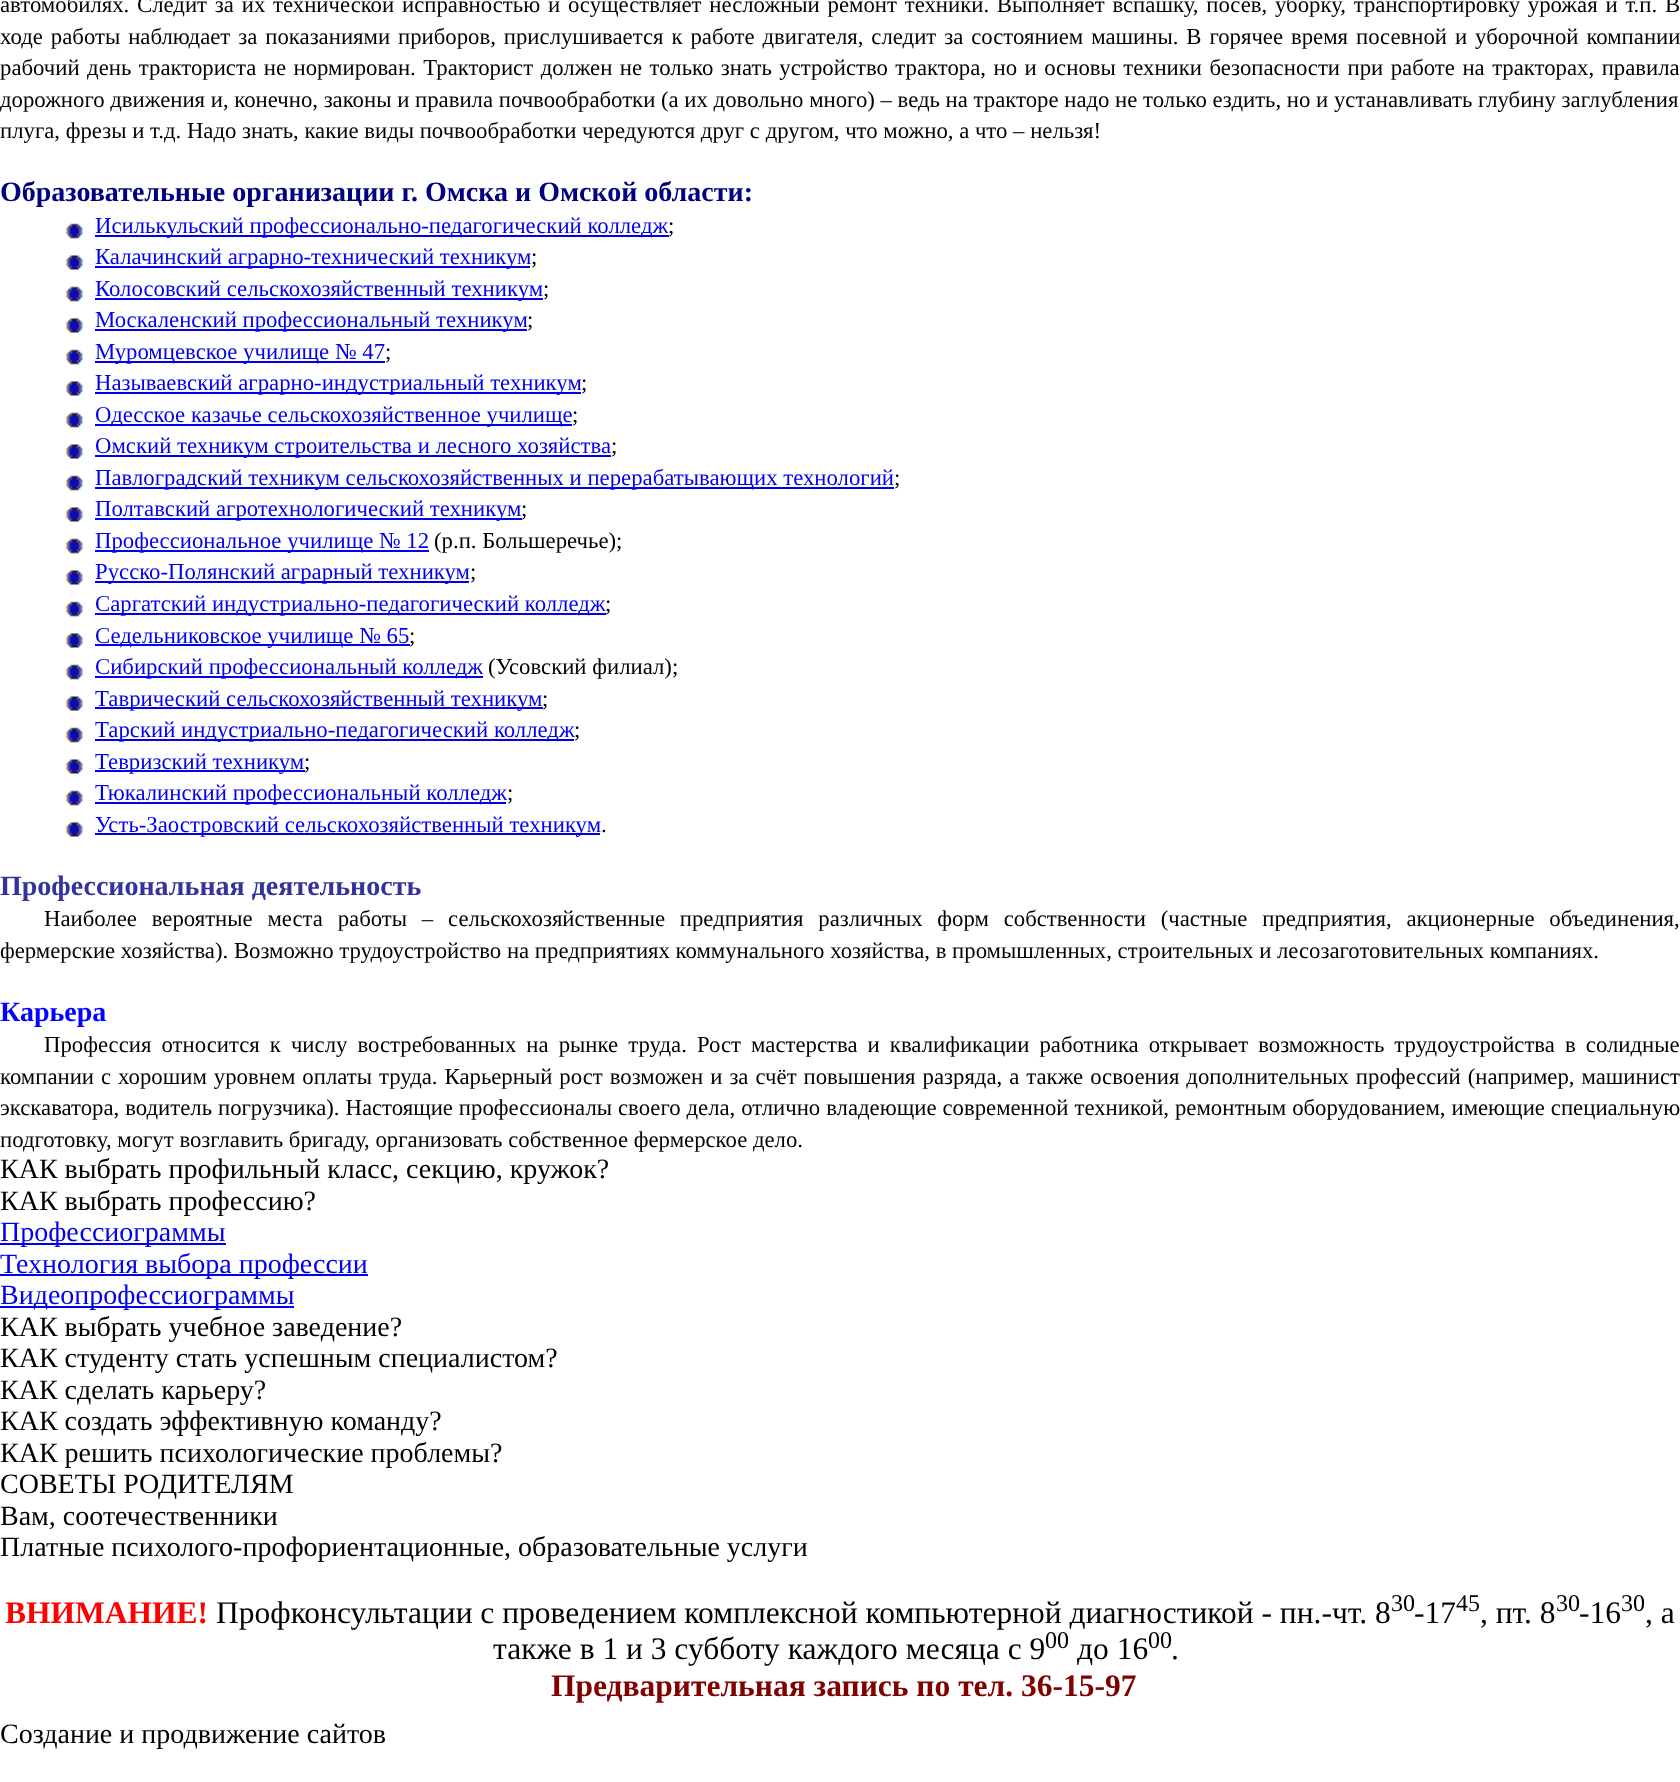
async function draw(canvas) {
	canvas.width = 1680;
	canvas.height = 1782;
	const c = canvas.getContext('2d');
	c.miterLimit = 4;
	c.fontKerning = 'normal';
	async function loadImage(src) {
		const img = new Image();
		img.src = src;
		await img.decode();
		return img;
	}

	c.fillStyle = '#fff';
	c.fillRect(0, 0, 1680, 1782);
	c.wordSpacing = '2.1px';
	c.font = '22.75px Liberation Serif';
	c.fillStyle = '#000';
	c.fillText('автомобилях. Следит за их технической исправностью и осуществляет несложный ремонт техники. Выполняет вспашку, посев, уборку, транспортировку урожая и т.п. В', 0, 12);
	c.wordSpacing = '2.25px';
	c.fillText('ходе работы наблюдает за показаниями приборов, прислушивается к работе двигателя, следит за состоянием машины. В горячее время посевной и уборочной компании', 0, 44);
	c.wordSpacing = '1.8px';
	c.fillText('рабочий день тракториста не нормирован. Тракторист должен не только знать устройство трактора, но и основы техники безопасности при работе на тракторах, правила', 0, 75);
	c.wordSpacing = '0px';
	c.fillText('дорожного движения и, конечно, законы и правила почвообработки (а их довольно много) – ведь на тракторе надо не только ездить, но и устанавливать глубину заглубления', 0, 107);
	c.fillText('плуга, фрезы и т.д. Надо знать, какие виды почвообработки чередуются друг с другом, что можно, а что – нельзя!', 0, 138);
	c.font = 'bold 28px Liberation Serif';
	c.fillStyle = '#000080';
	c.fillText('Образовательные организации г. Омска и Омской области:', 0, 201);
	c.drawImage(await loadImage('img1.png'), 66, 223, 17, 16);
	c.fillStyle = '#00e';
	c.fillRect(95, 235, 574, 2);
	c.font = '22.75px Liberation Serif';
	c.fillText('Исилькульский профессионально-педагогический колледж', 95, 233);
	c.fillStyle = '#000';
	c.fillText(';', 668, 233);
	c.drawImage(await loadImage('img2.png'), 66, 255, 17, 15);
	c.fillStyle = '#00e';
	c.fillRect(95, 266, 435, 2);
	c.fillText('Калачинский аграрно-технический техникум', 95, 264);
	c.fillStyle = '#000';
	c.fillText(';', 531, 264);
	c.drawImage(await loadImage('img1.png'), 66, 286, 17, 16);
	c.fillStyle = '#00e';
	c.fillRect(95, 298, 448, 2);
	c.fillText('Колосовский сельскохозяйственный техникум', 95, 296);
	c.fillStyle = '#000';
	c.fillText(';', 543, 296);
	c.drawImage(await loadImage('img2.png'), 66, 318, 17, 15);
	c.fillStyle = '#00e';
	c.fillRect(95, 329, 432, 2);
	c.fillText('Москаленский профессиональный техникум', 95, 327);
	c.fillStyle = '#000';
	c.fillText(';', 527, 327);
	c.drawImage(await loadImage('img1.png'), 66, 349, 17, 16);
	c.fillStyle = '#00e';
	c.fillRect(95, 361, 290, 2);
	c.fillText('Муромцевское училище № 47', 95, 359);
	c.fillStyle = '#000';
	c.fillText(';', 385, 359);
	c.drawImage(await loadImage('img2.png'), 66, 381, 17, 15);
	c.fillStyle = '#00e';
	c.fillRect(95, 392, 486, 2);
	c.fillText('Называевский аграрно-индустриальный техникум', 95, 390);
	c.fillStyle = '#000';
	c.fillText(';', 581, 390);
	c.drawImage(await loadImage('img1.png'), 66, 412, 17, 16);
	c.fillStyle = '#00e';
	c.fillRect(95, 424, 477, 2);
	c.fillText('Одесское казачье сельскохозяйственное училище', 95, 422);
	c.fillStyle = '#000';
	c.fillText(';', 572, 422);
	c.drawImage(await loadImage('img2.png'), 66, 444, 17, 15);
	c.fillStyle = '#00e';
	c.fillRect(95, 455, 516, 2);
	c.fillText('Омский техникум строительства и лесного хозяйства', 95, 453);
	c.fillStyle = '#000';
	c.fillText(';', 611, 453);
	c.drawImage(await loadImage('img1.png'), 66, 475, 17, 16);
	c.fillStyle = '#00e';
	c.fillRect(95, 487, 799, 2);
	c.fillText('Павлоградский техникум сельскохозяйственных и перерабатывающих технологий', 95, 485);
	c.fillStyle = '#000';
	c.fillText(';', 894, 485);
	c.drawImage(await loadImage('img2.png'), 66, 507, 17, 15);
	c.fillStyle = '#00e';
	c.fillRect(95, 518, 427, 2);
	c.fillText('Полтавский агротехнологический техникум', 95, 516);
	c.fillStyle = '#000';
	c.fillText(';', 521, 516);
	c.drawImage(await loadImage('img1.png'), 66, 538, 17, 16);
	c.fillStyle = '#00e';
	c.fillRect(95, 550, 334, 2);
	c.fillText('Профессиональное училище № 12', 95, 548);
	c.fillStyle = '#000';
	c.fillText('(р.п. Большеречье);', 434, 548);
	c.drawImage(await loadImage('img2.png'), 66, 570, 17, 15);
	c.fillStyle = '#00e';
	c.fillRect(95, 581, 374, 2);
	c.fillText('Русско-Полянский аграрный техникум', 95, 579);
	c.fillStyle = '#000';
	c.fillText(';', 470, 579);
	c.drawImage(await loadImage('img1.png'), 66, 601, 17, 16);
	c.fillStyle = '#00e';
	c.fillRect(95, 613, 511, 2);
	c.fillText('Саргатский индустриально-педагогический колледж', 95, 611);
	c.fillStyle = '#000';
	c.fillText(';', 605, 611);
	c.drawImage(await loadImage('img2.png'), 66, 633, 17, 15);
	c.fillStyle = '#00e';
	c.fillRect(95, 644, 315, 2);
	c.fillText('Седельниковское училище № 65', 95, 643);
	c.fillStyle = '#000';
	c.fillText(';', 409, 643);
	c.drawImage(await loadImage('img1.png'), 66, 664, 17, 16);
	c.fillStyle = '#00e';
	c.fillRect(95, 676, 388, 2);
	c.fillText('Сибирский профессиональный колледж', 95, 674);
	c.fillStyle = '#000';
	c.fillText('(Усовский филиал);', 488, 674);
	c.drawImage(await loadImage('img2.png'), 66, 696, 17, 15);
	c.fillStyle = '#00e';
	c.fillRect(95, 707, 448, 2);
	c.fillText('Таврический сельскохозяйственный техникум', 95, 706);
	c.fillStyle = '#000';
	c.fillText(';', 542, 706);
	c.drawImage(await loadImage('img1.png'), 66, 727, 17, 16);
	c.fillStyle = '#00e';
	c.fillRect(95, 739, 479, 2);
	c.fillText('Тарский индустриально-педагогический колледж', 95, 737);
	c.fillStyle = '#000';
	c.fillText(';', 574, 737);
	c.drawImage(await loadImage('img2.png'), 66, 759, 17, 15);
	c.fillStyle = '#00e';
	c.fillRect(95, 770, 210, 2);
	c.fillText('Тевризский техникум', 95, 769);
	c.fillStyle = '#000';
	c.fillText(';', 304, 769);
	c.drawImage(await loadImage('img1.png'), 66, 790, 17, 16);
	c.fillStyle = '#00e';
	c.fillRect(95, 802, 411, 2);
	c.fillText('Тюкалинский профессиональный колледж', 95, 800);
	c.fillStyle = '#000';
	c.fillText(';', 507, 800);
	c.drawImage(await loadImage('img2.png'), 66, 822, 17, 15);
	c.fillStyle = '#00e';
	c.fillRect(95, 833, 505, 2);
	c.fillText('Усть-Заостровский сельскохозяйственный техникум', 95, 832);
	c.fillStyle = '#000';
	c.fillText('.', 601, 832);
	c.font = 'bold 28px Liberation Serif';
	c.fillStyle = '#339';
	c.fillText('Профессиональная деятельность', 0, 895);
	c.wordSpacing = '9.1px';
	c.font = '22.75px Liberation Serif';
	c.fillStyle = '#000';
	c.fillText('Наиболее вероятные места работы – сельскохозяйственные предприятия различных форм собственности (частные предприятия, акционерные объединения,', 44, 926);
	c.wordSpacing = '0px';
	c.fillText('фермерские хозяйства). Возможно трудоустройство на предприятиях коммунального хозяйства, в промышленных, строительных и лесозаготовительных компаниях.', 0, 958);
	c.font = 'bold 28px Liberation Serif';
	c.fillStyle = '#00f';
	c.fillText('Карьера', 0, 1021);
	c.wordSpacing = '4.4px';
	c.font = '22.75px Liberation Serif';
	c.fillStyle = '#000';
	c.fillText('Профессия относится к числу востребованных на рынке труда. Рост мастерства и квалификации работника открывает возможность трудоустройства в солидные', 44, 1052);
	c.wordSpacing = '1.3px';
	c.fillText('компании с хорошим уровнем оплаты труда. Карьерный рост возможен и за счёт повышения разряда, а также освоения дополнительных профессий (например, машинист', 0, 1084);
	c.wordSpacing = '0.25px';
	c.fillText('экскаватора, водитель погрузчика). Настоящие профессионалы своего дела, отлично владеющие современной техникой, ремонтным оборудованием, имеющие специальную', 0, 1115);
	c.wordSpacing = '0px';
	c.fillText('подготовку, могут возглавить бригаду, организовать собственное фермерское дело.', 0, 1147);
	c.font = '28px Liberation Serif';
	c.fillText('КАК выбрать профильный класс, секцию, кружок?', 0, 1178);
	c.fillText('КАК выбрать профессию?', 0, 1210);
	c.fillStyle = '#00e';
	c.fillRect(0, 1243, 226, 2);
	c.fillText('Профессиограммы', 0, 1241);
	c.fillRect(0, 1274, 368, 2);
	c.fillText('Технология выбора профессии', 0, 1273);
	c.fillRect(0, 1306, 294, 2);
	c.fillText('Видеопрофессиограммы', 0, 1304);
	c.fillStyle = '#000';
	for (const [text, x, y] of [
		['КАК выбрать учебное заведение?', 0, 1336],
		['КАК студенту стать успешным специалистом?', 0, 1367],
		['КАК сделать карьеру?', 0, 1399],
		['КАК создать эффективную команду?', 0, 1430],
		['КАК решить психологические проблемы?', 0, 1462],
		['СОВЕТЫ РОДИТЕЛЯМ', 0, 1493],
		['Вам, соотечественники', 0, 1525],
		['Платные психолого-профориентационные, образовательные услуги', 0, 1556],
	]) {
		c.fillText(text, x, y);
	}
	c.font = 'bold 31.5px Liberation Serif';
	c.fillStyle = '#f00';
	c.fillText('ВНИМАНИЕ!', 5, 1623);
	c.font = '31.5px Liberation Serif';
	c.fillStyle = '#000';
	c.fillText('Профконсультации с проведением комплексной компьютерной диагностикой - пн.-чт. 8', 216, 1623);
	c.font = '24px Liberation Serif';
	c.fillText('30', 1391, 1611);
	c.font = '31.5px Liberation Serif';
	c.fillText('-17', 1414, 1623);
	c.font = '24px Liberation Serif';
	c.fillText('45', 1456, 1611);
	c.font = '31.5px Liberation Serif';
	c.fillText(', пт. 8', 1480, 1623);
	c.font = '24px Liberation Serif';
	c.fillText('30', 1556, 1611);
	c.font = '31.5px Liberation Serif';
	c.fillText('-16', 1579, 1623);
	c.font = '24px Liberation Serif';
	c.fillText('30', 1621, 1611);
	c.font = '31.5px Liberation Serif';
	c.fillText(', а', 1645, 1623);
	c.fillText('также в 1 и 3 субботу каждого месяца с 9', 493, 1659);
	c.font = '24px Liberation Serif';
	c.fillText('00', 1045, 1648);
	c.font = '31.5px Liberation Serif';
	c.fillText('до 16', 1077, 1659);
	c.font = '24px Liberation Serif';
	c.fillText('00', 1148, 1648);
	c.font = '31.5px Liberation Serif';
	c.fillText('.', 1171, 1659);
	c.font = 'bold 31.5px Liberation Serif';
	c.fillStyle = '#800000';
	c.fillText('Предварительная запись по тел. 36-15-97', 551, 1696);
	c.font = '28px Liberation Serif';
	c.fillStyle = '#000';
	c.fillText('Создание и продвижение сайтов', 0, 1743);
}

draw(document.querySelector('canvas'));
